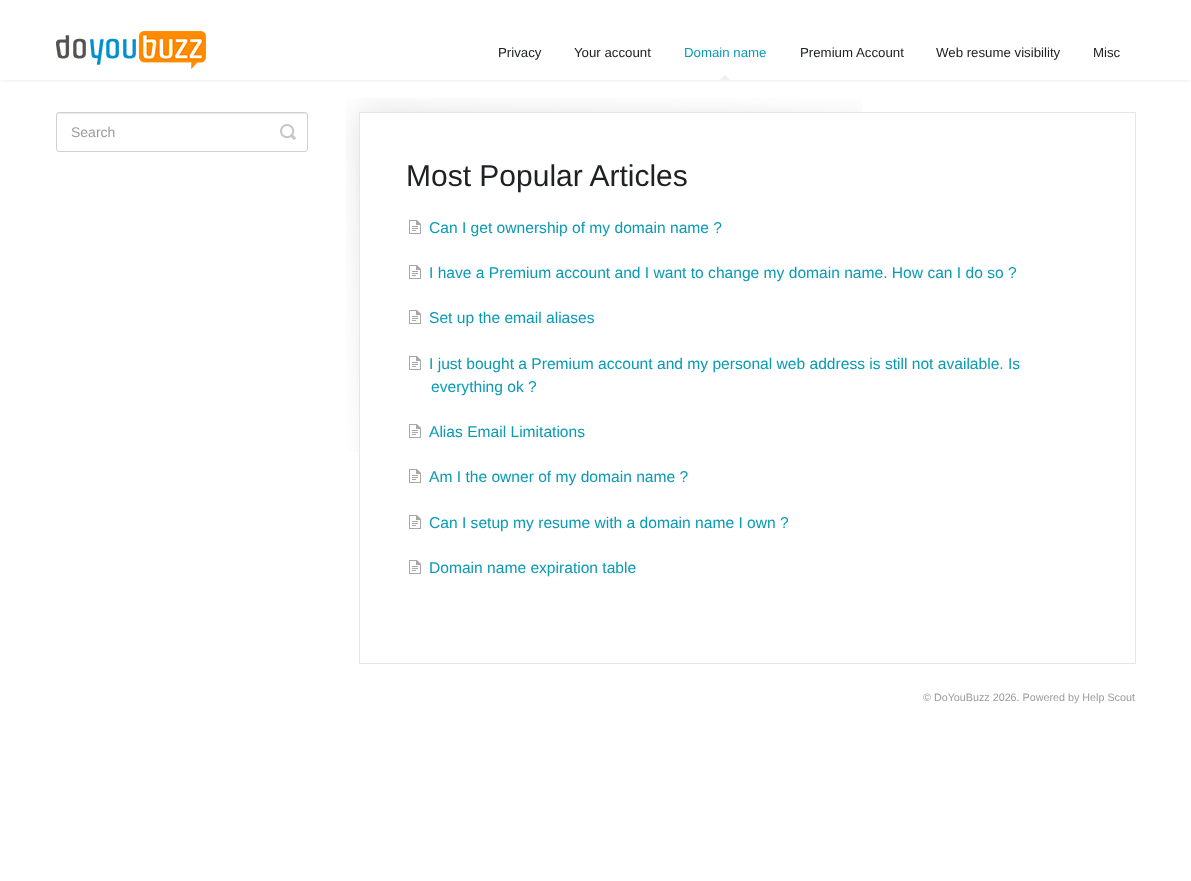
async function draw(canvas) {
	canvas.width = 1191;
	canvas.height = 881;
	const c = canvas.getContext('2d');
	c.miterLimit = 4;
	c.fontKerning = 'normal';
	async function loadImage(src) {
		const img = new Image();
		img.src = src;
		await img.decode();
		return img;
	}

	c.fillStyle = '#fff';
	c.fillRect(0, 0, 1191, 881);
	c.save();
	c.beginPath();
	c.rect(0, 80, 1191, 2);
	c.clip();
	c.fillStyle = '#00000012';
	c.filter = 'blur(2px)';
	c.beginPath();
	c.rect(0, 1, 1191, 80);
	c.fill();
	c.filter = 'none';
	c.restore();
	c.drawImage(await loadImage('img1.png'), 56, 31, 150, 38);
	c.font = '13.25px Liberation Sans';
	c.fillStyle = '#202124';
	c.fillText('Privacy', 498, 57);
	c.fillText('Your account', 574, 57);
	c.fillStyle = '#099ab4';
	c.fillText('Domain name', 684, 57);
	c.fillStyle = '#f0f0f0';
	c.beginPath();
	c.moveTo(730, 80);
	c.lineTo(720, 80);
	c.lineTo(725, 75);
	c.closePath();
	c.fill();
	c.fillStyle = '#202124';
	for (const [text, x, y] of [
		['Premium Account', 800, 57],
		['Web resume visibility', 936, 57],
		['Misc', 1093, 57],
	]) {
		c.fillText(text, x, y);
	}
	c.fillStyle = '#ececec';
	c.beginPath();
	c.moveTo(59, 114);
	c.lineTo(305, 114);
	c.bezierCurveTo(306, 114, 307, 115, 307, 116);
	c.bezierCurveTo(307, 115, 307, 113, 305, 113);
	c.lineTo(59, 113);
	c.bezierCurveTo(57, 113, 57, 115, 57, 116);
	c.bezierCurveTo(57, 115, 58, 114, 59, 114);
	c.closePath();
	c.fill();
	c.beginPath();
	c.roundRect(56.5, 112.5, 251, 39, 2.5);
	c.strokeStyle = '#d0d0d0';
	c.stroke();
	c.font = '14px Liberation Sans';
	c.fillStyle = '#9b9b9b';
	c.fillText('Search', 71, 137);
	c.drawImage(await loadImage('img2.png'), 280, 124, 16, 16);
	c.drawImage(await loadImage('img3.png'), 346, 98, 516, 354);
	c.strokeStyle = '#e9e5e5';
	c.strokeRect(359.5, 112.5, 776, 551);
	c.font = '30px Liberation Sans';
	c.fillStyle = '#202124';
	c.fillText('Most Popular Articles', 406, 186);
	c.drawImage(await loadImage('img4.png'), 409, 220, 12, 14);
	c.font = '15.6px Liberation Sans';
	c.fillStyle = '#099ab4';
	c.fillText('Can I get ownership of my domain name ?', 429, 233);
	c.drawImage(await loadImage('img4.png'), 409, 265, 12, 14);
	c.fillText('I have a Premium account and I want to change my domain name. How can I do so ?', 429, 278);
	c.drawImage(await loadImage('img4.png'), 409, 310, 12, 14);
	c.fillText('Set up the email aliases', 429, 323);
	c.drawImage(await loadImage('img4.png'), 409, 356, 12, 14);
	c.fillText('I just bought a Premium account and my personal web address is still not available. Is', 429, 369);
	c.fillText('everything ok ?', 431, 392);
	c.drawImage(await loadImage('img4.png'), 409, 424, 12, 14);
	c.fillText('Alias Email Limitations', 429, 437);
	c.drawImage(await loadImage('img4.png'), 409, 469, 12, 14);
	c.fillText('Am I the owner of my domain name ?', 429, 482);
	c.drawImage(await loadImage('img4.png'), 409, 515, 12, 14);
	c.fillText('Can I setup my resume with a domain name I own ?', 429, 528);
	c.drawImage(await loadImage('img4.png'), 409, 560, 12, 14);
	c.fillText('Domain name expiration table', 429, 573);
	c.font = '10.75px Liberation Sans';
	c.fillStyle = '#9b9b9b';
	c.fillText('© DoYouBuzz 2026. Powered by Help Scout', 923, 701);
}

draw(document.querySelector('canvas'));
